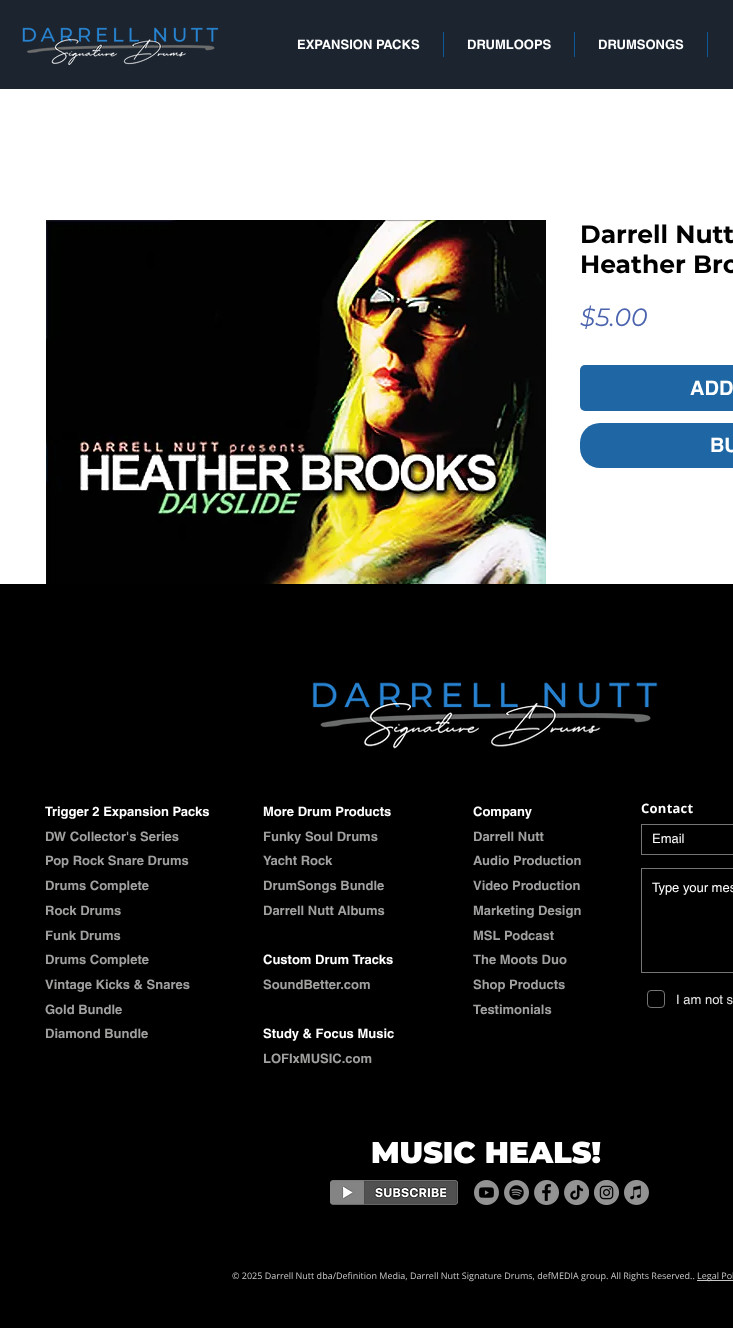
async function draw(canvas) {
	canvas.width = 733;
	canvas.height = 1328;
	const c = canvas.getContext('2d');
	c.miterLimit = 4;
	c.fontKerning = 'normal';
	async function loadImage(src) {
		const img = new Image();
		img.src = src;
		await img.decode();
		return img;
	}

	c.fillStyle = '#fff';
	c.fillRect(0, 0, 733, 1328);
	c.fillStyle = '#1c242f';
	c.fillRect(0, 0, 733, 89);
	c.drawImage(await loadImage('img1.png'), 22, 27, 197, 38);
	c.font = 'bold 13px helvetica';
	c.fillStyle = '#fff';
	c.fillText('EXPANSION PACKS', 297, 49);
	c.fillStyle = '#0e5897';
	c.fillRect(443, 32, 1, 25);
	c.fillStyle = '#fff';
	c.fillText('DRUMLOOPS', 467, 49);
	c.fillStyle = '#0e5897';
	c.fillRect(574, 32, 1, 25);
	c.fillStyle = '#fff';
	c.fillText('DRUMSONGS', 598, 49);
	c.fillStyle = '#0e5897';
	c.fillRect(707, 32, 1, 25);
	c.drawImage(await loadImage('img2.png'), 46, 220, 500, 364);
	c.font = 'bold 25px Montserrat';
	c.fillStyle = '#000';
	c.fillText('Darrell Nutt', 580, 243);
	c.fillText('Heather Bro', 580, 273);
	c.font = 'italic 25px Montserrat';
	c.fillStyle = '#4b64ad';
	c.fillText('$5.00', 580, 326);
	c.fillStyle = '#1e67a4';
	c.beginPath();
	c.roundRect(580, 365, 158, 46, 5);
	c.fill();
	c.font = 'bold 20px helvetica';
	c.fillStyle = '#fff';
	c.fillText('ADD', 690, 395);
	c.fillStyle = '#1e67a4';
	c.beginPath();
	c.roundRect(580, 423, 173, 45, 20);
	c.fill();
	c.fillStyle = '#fff';
	c.fillText('BU', 710, 452);
	c.fillStyle = '#000';
	c.fillRect(0, 584, 733, 744);
	c.drawImage(await loadImage('img3.png'), 312, 682, 346, 67);
	c.font = 'bold 13px helvetica';
	c.fillStyle = '#fff';
	c.fillText('Trigger 2 Expansion Packs', 45, 816);
	c.fillStyle = '#a0a09f';
	for (const [text, x, y] of [
		['DW Collector\'s Series', 45, 841],
		['Pop Rock Snare Drums', 45, 865],
		['Drums Complete', 45, 890],
		['Rock Drums', 45, 915],
		['Funk Drums', 45, 940],
		['Drums Complete', 45, 964],
		['Vintage Kicks & Snares', 45, 989],
		['Gold Bundle', 45, 1014],
		['Diamond Bundle', 45, 1038],
	]) {
		c.fillText(text, x, y);
	}
	c.fillStyle = '#fff';
	c.fillText('More Drum Products', 263, 816);
	c.fillStyle = '#a0a09f';
	for (const [text, x, y] of [
		['Funky Soul Drums', 263, 841],
		['Yacht Rock', 263, 865],
		['DrumSongs Bundle', 263, 890],
		['Darrell Nutt Albums', 263, 915],
	]) {
		c.fillText(text, x, y);
	}
	c.fillStyle = '#fff';
	c.fillText('Custom Drum Tracks', 263, 964);
	c.fillStyle = '#a0a09f';
	c.fillText('SoundBetter.com', 263, 989);
	c.fillStyle = '#fff';
	c.fillText('Study & Focus Music', 263, 1038);
	c.fillStyle = '#a0a09f';
	c.fillText('LOFIxMUSIC.com', 263, 1063);
	c.fillStyle = '#fff';
	c.fillText('Company', 473, 816);
	c.fillStyle = '#a0a09f';
	for (const [text, x, y] of [
		['Darrell Nutt', 473, 841],
		['Audio Production', 473, 865],
		['Video Production', 473, 890],
		['Marketing Design', 473, 915],
		['MSL Podcast', 473, 940],
		['The Moots Duo', 473, 964],
		['Shop Products', 473, 989],
		['Testimonials', 473, 1014],
	]) {
		c.fillText(text, x, y);
	}
	c.letterSpacing = '0.25px';
	c.font = 'bold 13px Open Sans';
	c.fillStyle = '#fff';
	c.fillText('Contact', 641, 813);
	c.strokeStyle = '#757575';
	c.strokeRect(641.5, 824.5, 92, 30);
	c.letterSpacing = '0px';
	c.font = '13px helvetica';
	c.fillText('Email', 652, 843);
	c.strokeRect(641.5, 868.5, 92, 104);
	c.fillText('Type your mes', 652, 892);
	c.beginPath();
	c.roundRect(647.5, 990.5, 17, 17, 3.5);
	c.stroke();
	c.fillStyle = '#e8e6e6';
	c.fillText('I am not s', 676, 1004);
	c.font = '100 30px Montserrat';
	c.fillStyle = '#fff';
	c.fillText('MUSIC HEALS!', 371, 1163);
	c.drawImage(await loadImage('img4.png'), 330, 1180, 128, 25);
	c.drawImage(await loadImage('img5.png'), 474, 1180, 25, 25);
	c.drawImage(await loadImage('img6.png'), 504, 1180, 25, 25);
	c.drawImage(await loadImage('img7.png'), 534, 1180, 25, 25);
	c.drawImage(await loadImage('img8.png'), 564, 1180, 25, 25);
	c.drawImage(await loadImage('img9.png'), 594, 1180, 25, 25);
	c.drawImage(await loadImage('img10.png'), 624, 1180, 25, 25);
	c.font = '9px Open Sans';
	c.fillStyle = '#c7c7c7';
	c.fillText('© 2025 Darrell Nutt dba/Definition Media, Darrell Nutt Signature Drums, defMEDIA group. All Rights Reserved..', 232, 1279);
	c.fillRect(697, 1280, 36, 1);
	c.fillText('Legal Pol', 697, 1279);
}

draw(document.querySelector('canvas'));
